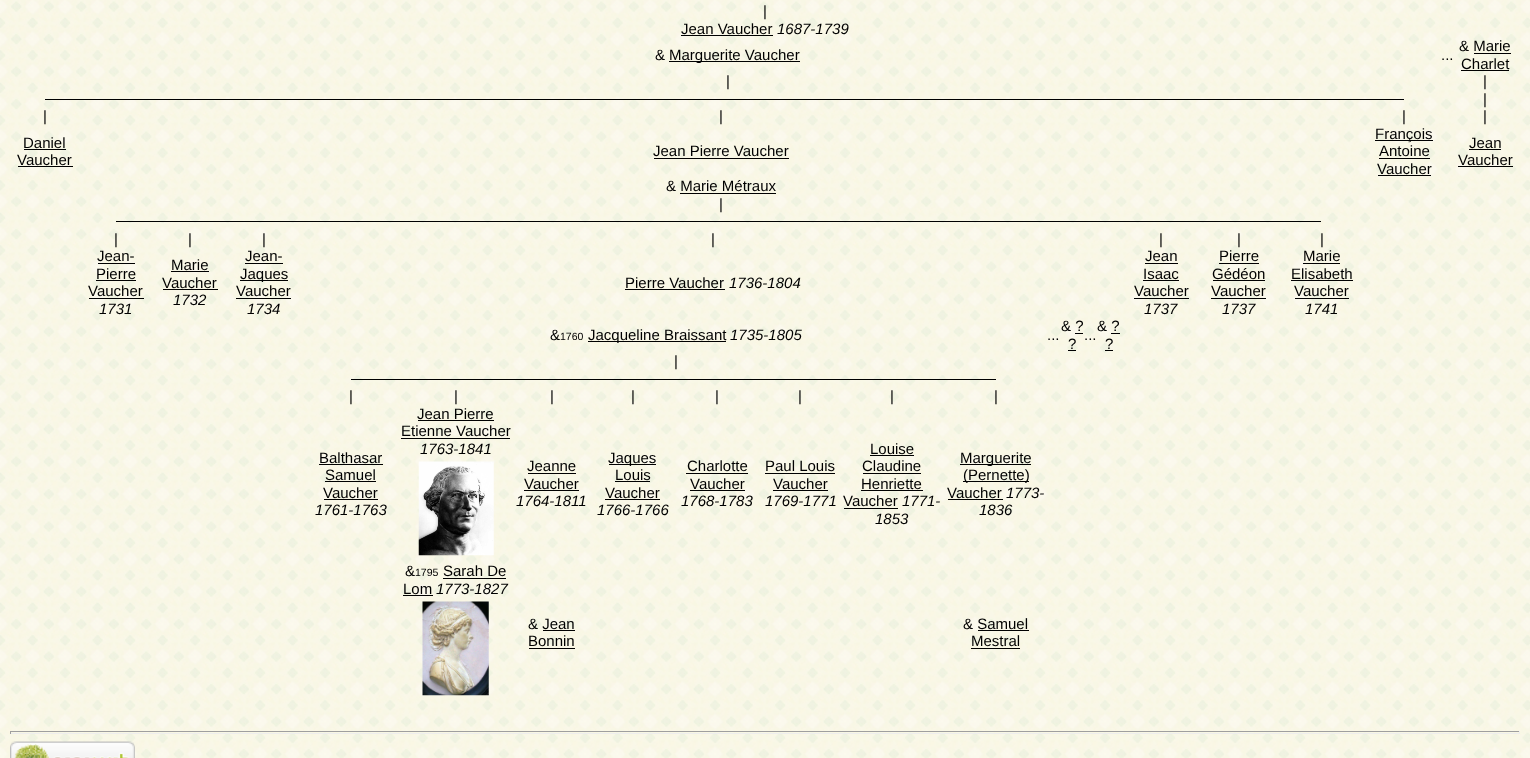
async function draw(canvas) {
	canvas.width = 1530;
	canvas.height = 758;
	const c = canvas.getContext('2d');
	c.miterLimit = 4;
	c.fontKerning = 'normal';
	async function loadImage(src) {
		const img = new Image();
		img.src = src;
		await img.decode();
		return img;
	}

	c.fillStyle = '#fff';
	c.fillRect(0, 0, 1530, 758);
	c.drawImage(await loadImage('img1.png'), 0, 0, 1530, 758);
	c.font = '15px Liberation Sans';
	c.fillStyle = '#000';
	c.fillText('|', 763, 16);
	c.fillText('Jean Vaucher', 681, 34);
	c.fillRect(681, 35, 92, 1);
	c.font = 'italic 15px Liberation Sans';
	c.fillText('1687-1739', 777, 34);
	c.font = '15px Liberation Sans';
	c.fillText('&', 655, 60);
	c.fillRect(669, 61, 131, 1);
	for (const [text, x, y] of [
		['Marguerite Vaucher', 669, 60],
		['...', 1441, 60],
		['& Marie', 1459, 51],
		['Charlet', 1461, 69],
	]) {
		c.fillText(text, x, y);
	}
	c.fillRect(1474, 53, 37, 1);
	c.fillRect(1461, 70, 48, 1);
	c.fillText('|', 726, 86);
	c.fillText('|', 1483, 86);
	c.fillRect(45, 99, 1359, 1);
	for (const [text, x, y] of [
		['|', 1483, 104],
		['|', 43, 121],
		['|', 719, 121],
		['|', 1402, 121],
		['|', 1483, 121],
		['Daniel', 23, 148],
	]) {
		c.fillText(text, x, y);
	}
	c.fillRect(24, 149, 42, 1);
	c.fillText('Vaucher', 17, 165);
	c.fillRect(18, 166, 55, 1);
	c.fillText('Jean Pierre Vaucher', 653, 156);
	c.fillRect(654, 158, 135, 1);
	c.fillRect(1375, 140, 58, 1);
	c.fillText('François', 1375, 139);
	c.fillText('Antoine', 1379, 156);
	c.fillRect(1379, 158, 51, 1);
	c.fillText('Vaucher', 1377, 174);
	c.fillRect(1378, 175, 53, 1);
	c.fillText('Jean', 1469, 148);
	c.fillRect(1469, 149, 32, 1);
	c.fillText('Vaucher', 1458, 165);
	c.fillRect(1458, 166, 55, 1);
	c.fillText('& Marie Métraux', 666, 191);
	c.fillRect(680, 193, 96, 1);
	c.fillText('|', 719, 209);
	c.fillRect(116, 221, 1205, 1);
	for (const [text, x, y] of [
		['|', 114, 244],
		['|', 188, 244],
		['|', 262, 244],
		['|', 711, 244],
		['|', 1159, 244],
		['|', 1237, 244],
		['|', 1320, 244],
		['Jean-', 97, 261],
	]) {
		c.fillText(text, x, y);
	}
	c.fillRect(98, 263, 37, 1);
	c.fillText('Pierre', 96, 279);
	c.fillRect(96, 280, 40, 1);
	c.fillText('Vaucher', 88, 296);
	c.fillRect(89, 298, 55, 1);
	c.font = 'italic 15px Liberation Sans';
	c.fillText('1731', 99, 314);
	c.font = '15px Liberation Sans';
	c.fillText('Marie', 171, 270);
	c.fillRect(171, 271, 38, 1);
	c.fillText('Vaucher', 162, 288);
	c.fillRect(163, 289, 55, 1);
	c.font = 'italic 15px Liberation Sans';
	c.fillText('1732', 173, 305);
	c.font = '15px Liberation Sans';
	c.fillText('Jean-', 245, 261);
	c.fillRect(245, 263, 38, 1);
	c.fillRect(240, 280, 48, 1);
	c.fillText('Jaques', 240, 279);
	c.fillText('Vaucher', 236, 296);
	c.fillRect(236, 298, 55, 1);
	c.font = 'italic 15px Liberation Sans';
	c.fillText('1734', 247, 314);
	c.font = '15px Liberation Sans';
	c.fillText('Pierre Vaucher', 625, 288);
	c.fillRect(625, 289, 100, 1);
	c.font = 'italic 15px Liberation Sans';
	c.fillText('1736-1804', 729, 288);
	c.font = '15px Liberation Sans';
	c.fillText('Jean', 1145, 261);
	c.fillRect(1145, 263, 33, 1);
	c.fillText('Isaac', 1143, 279);
	c.fillRect(1143, 280, 36, 1);
	c.fillText('Vaucher', 1134, 296);
	c.fillRect(1134, 298, 55, 1);
	c.font = 'italic 15px Liberation Sans';
	c.fillText('1737', 1144, 314);
	c.font = '15px Liberation Sans';
	c.fillText('Pierre', 1219, 261);
	c.fillRect(1219, 263, 40, 1);
	c.fillText('Gédéon', 1212, 279);
	c.fillRect(1213, 280, 52, 1);
	c.fillText('Vaucher', 1211, 296);
	c.fillRect(1211, 298, 55, 1);
	c.font = 'italic 15px Liberation Sans';
	c.fillText('1737', 1222, 314);
	c.font = '15px Liberation Sans';
	c.fillText('Marie', 1303, 261);
	c.fillRect(1303, 263, 37, 1);
	c.fillText('Elisabeth', 1291, 279);
	c.fillRect(1291, 280, 62, 1);
	c.fillText('Vaucher', 1294, 296);
	c.fillRect(1295, 298, 54, 1);
	c.font = 'italic 15px Liberation Sans';
	c.fillText('1741', 1305, 314);
	c.font = '15px Liberation Sans';
	c.fillText('&', 550, 340);
	c.font = '10.5px Liberation Sans';
	c.fillText('1760', 560, 340);
	c.fillRect(588, 341, 138, 1);
	c.font = '15px Liberation Sans';
	c.fillText('Jacqueline Braissant', 588, 340);
	c.font = 'italic 15px Liberation Sans';
	c.fillText('1735-1805', 730, 340);
	c.font = '15px Liberation Sans';
	for (const [text, x, y] of [
		['...', 1047, 340],
		['& ?', 1061, 331],
		['?', 1068, 349],
	]) {
		c.fillText(text, x, y);
	}
	c.fillRect(1075, 333, 8, 1);
	c.fillRect(1068, 350, 8, 1);
	for (const [text, x, y] of [
		['...', 1084, 340],
		['& ?', 1097, 331],
		['?', 1105, 349],
	]) {
		c.fillText(text, x, y);
	}
	c.fillRect(1111, 333, 9, 1);
	c.fillRect(1105, 350, 8, 1);
	c.fillText('|', 674, 366);
	c.fillRect(351, 379, 645, 1);
	for (const [text, x, y] of [
		['|', 349, 401],
		['|', 454, 401],
		['|', 550, 401],
		['|', 631, 401],
		['|', 715, 401],
		['|', 798, 401],
		['|', 890, 401],
		['|', 994, 401],
		['Jean Pierre', 417, 419],
	]) {
		c.fillText(text, x, y);
	}
	c.fillRect(418, 420, 76, 1);
	c.fillText('Etienne Vaucher', 401, 436);
	c.fillRect(401, 438, 109, 1);
	c.font = 'italic 15px Liberation Sans';
	c.fillText('1763-1841', 420, 454);
	c.drawImage(await loadImage('img2.png'), 418, 461, 76, 95);
	c.font = '15px Liberation Sans';
	c.fillText('Balthasar', 319, 463);
	c.fillRect(319, 464, 64, 1);
	c.fillText('Samuel', 325, 480);
	c.fillRect(325, 481, 51, 1);
	c.fillText('Vaucher', 323, 498);
	c.fillRect(324, 499, 54, 1);
	c.font = 'italic 15px Liberation Sans';
	c.fillText('1761-1763', 315, 515);
	c.font = '15px Liberation Sans';
	c.fillText('Jeanne', 527, 471);
	c.fillRect(528, 473, 48, 1);
	c.fillText('Vaucher', 524, 489);
	c.fillRect(524, 490, 55, 1);
	c.font = 'italic 15px Liberation Sans';
	c.fillText('1764-1811', 516, 506);
	c.fillRect(609, 464, 47, 1);
	c.font = '15px Liberation Sans';
	c.fillText('Jaques', 608, 463);
	c.fillText('Louis', 615, 480);
	c.fillRect(615, 481, 35, 1);
	c.fillText('Vaucher', 605, 498);
	c.fillRect(605, 499, 55, 1);
	c.font = 'italic 15px Liberation Sans';
	c.fillText('1766-1766', 597, 515);
	c.font = '15px Liberation Sans';
	c.fillText('Charlotte', 687, 471);
	c.fillRect(686, 473, 62, 1);
	c.fillText('Vaucher', 690, 489);
	c.fillRect(690, 490, 55, 1);
	c.font = 'italic 15px Liberation Sans';
	c.fillText('1768-1783', 681, 506);
	c.font = '15px Liberation Sans';
	c.fillText('Paul Louis', 765, 471);
	c.fillRect(765, 473, 70, 1);
	c.fillText('Vaucher', 773, 489);
	c.fillRect(773, 490, 55, 1);
	c.font = 'italic 15px Liberation Sans';
	c.fillText('1769-1771', 765, 506);
	c.font = '15px Liberation Sans';
	c.fillText('Louise', 870, 454);
	c.fillRect(870, 455, 44, 1);
	c.fillText('Claudine', 862, 471);
	c.fillRect(863, 473, 58, 1);
	c.fillText('Henriette', 861, 489);
	c.fillRect(861, 490, 62, 1);
	c.fillText('Vaucher', 843, 506);
	c.fillRect(844, 508, 54, 1);
	c.font = 'italic 15px Liberation Sans';
	c.fillText('1771-', 902, 506);
	c.fillText('1853', 875, 524);
	c.fillRect(960, 464, 71, 1);
	c.font = '15px Liberation Sans';
	c.fillText('Marguerite', 960, 463);
	c.fillRect(963, 481, 66, 1);
	c.fillText('(Pernette)', 963, 480);
	c.fillText('Vaucher', 947, 498);
	c.fillRect(948, 499, 55, 1);
	c.font = 'italic 15px Liberation Sans';
	c.fillText('1773-', 1006, 498);
	c.fillText('1836', 979, 515);
	c.font = '15px Liberation Sans';
	c.fillText('&', 405, 576);
	c.font = '10.5px Liberation Sans';
	c.fillText('1795', 415, 576);
	c.font = '15px Liberation Sans';
	c.fillText('Sarah De', 443, 576);
	c.fillRect(443, 578, 63, 1);
	c.fillText('Lom', 403, 594);
	c.fillRect(403, 595, 30, 1);
	c.font = 'italic 15px Liberation Sans';
	c.fillText('1773-1827', 436, 594);
	c.drawImage(await loadImage('img3.png'), 422, 601, 67, 95);
	c.font = '15px Liberation Sans';
	c.fillText('& Jean', 528, 629);
	c.fillText('Bonnin', 528, 646);
	c.fillRect(543, 630, 32, 1);
	c.fillRect(529, 648, 46, 1);
	c.fillText('& Samuel', 963, 629);
	c.fillText('Mestral', 971, 646);
	for (const [x, y, w, h, color] of [
		[978, 630, 51, 1, '#000'],
		[971, 648, 49, 1, '#000'],
		[10, 731, 1510, 1, '#9f9f9f'],
		[1519, 731, 1, 3, '#eee'],
		[10, 733, 1510, 1, '#eee'],
		[10, 731, 1, 3, '#9f9f9f'],
	]) {
		c.fillStyle = color;
		c.fillRect(x, y, w, h);
	}
	c.drawImage(await loadImage('img4.png'), 10, 741, 125, 17);
}

draw(document.querySelector('canvas'));
